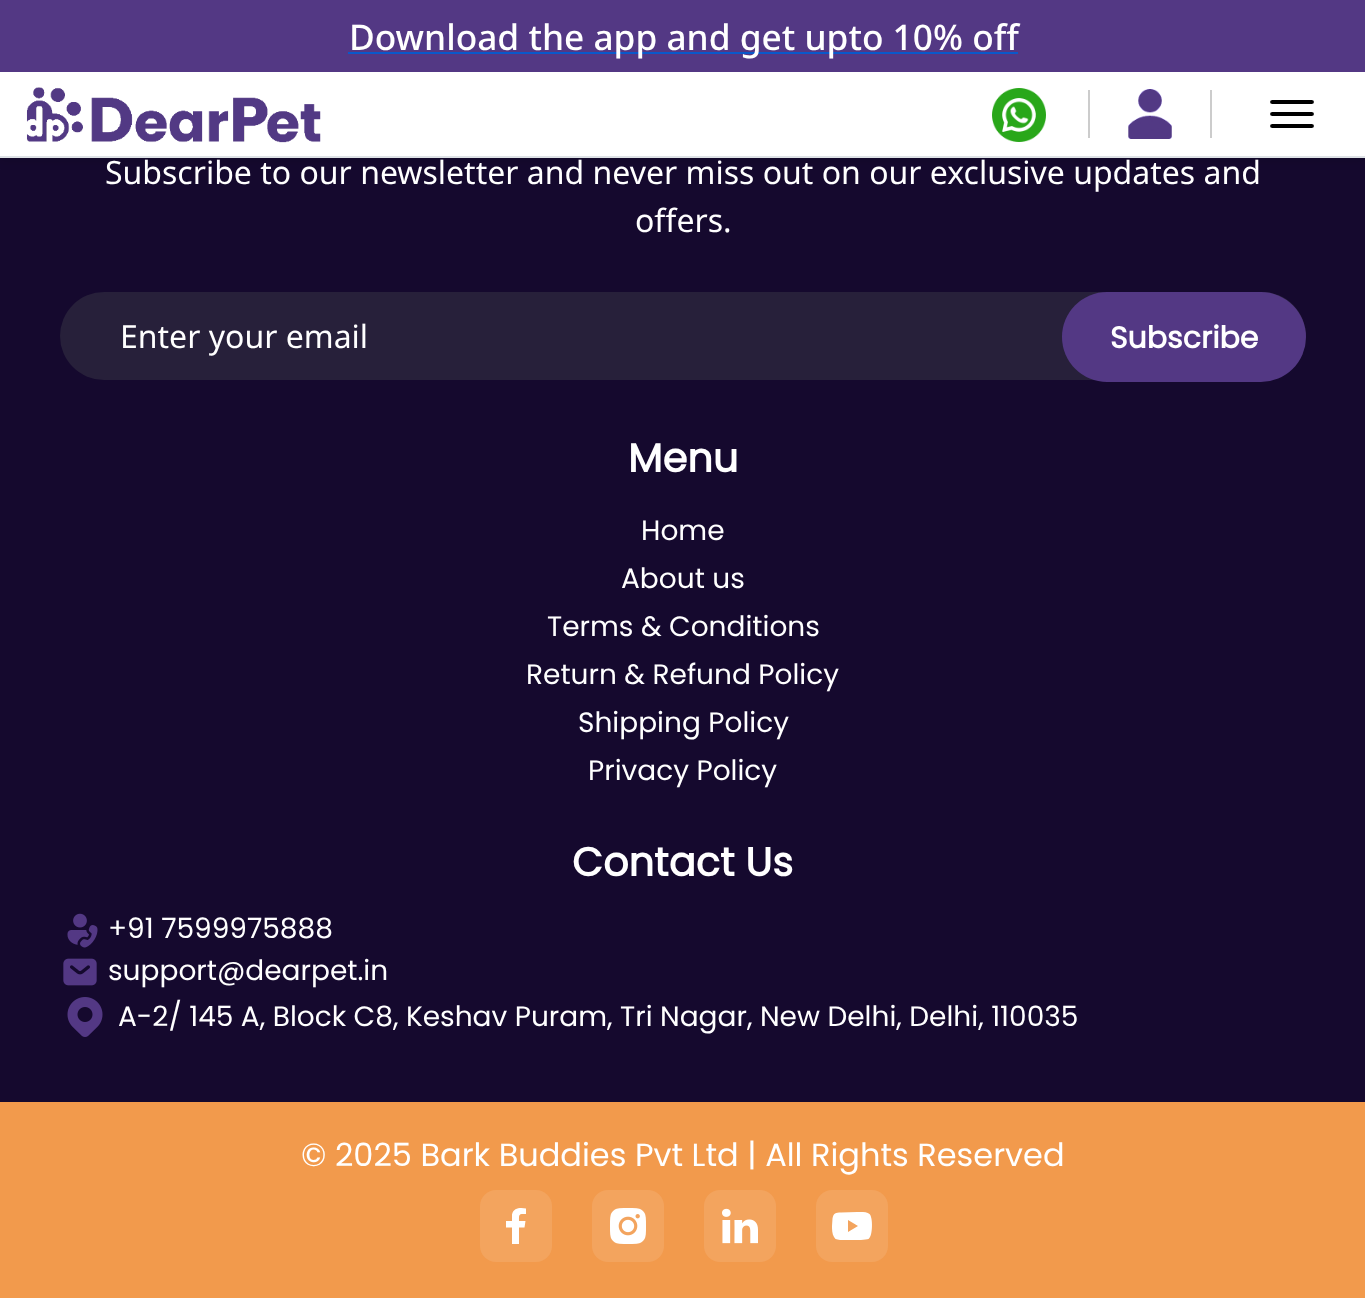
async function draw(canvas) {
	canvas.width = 1365;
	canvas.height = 1298;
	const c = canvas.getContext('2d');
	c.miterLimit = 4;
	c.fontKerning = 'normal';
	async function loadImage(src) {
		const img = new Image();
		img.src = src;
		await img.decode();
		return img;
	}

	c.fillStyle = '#15092e';
	c.fillRect(0, 0, 1365, 1298);
	c.fillStyle = '#0000001a';
	c.filter = 'blur(4px)';
	c.beginPath();
	c.rect(0, 4, 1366, 158);
	c.fill();
	c.filter = 'none';
	for (const [x, y, w, h, color] of [
		[0, 72, 1365, 84, '#fff'],
		[0, 156, 1365, 2, '#dee2e6'],
		[0, 0, 1365, 72, '#533884'],
		[348, 52, 670, 2, '#0a58ca'],
	]) {
		c.fillStyle = color;
		c.fillRect(x, y, w, h);
	}
	c.font = '500 35.25px Noto Sans';
	c.fillStyle = '#fff';
	c.fillText('Download the app and get upto 10% off', 349, 50);
	c.drawImage(await loadImage('img1.png'), 26, 87, 295, 56);
	c.drawImage(await loadImage('img2.png'), 992, 88, 54, 54);
	c.fillStyle = '#ccc';
	c.fillRect(1088, 90, 2, 48);
	c.drawImage(await loadImage('img3.png'), 1128, 89, 44, 50);
	c.fillRect(1210, 90, 2, 48);
	c.drawImage(await loadImage('img4.png'), 1270, 100, 44, 28);
	c.font = '32px Noto Sans';
	c.fillStyle = '#fff';
	c.fillText('Subscribe to our newsletter and never miss out on our exclusive updates and', 105, 184);
	c.fillText('offers.', 635, 232);
	c.fillStyle = '#27203a';
	c.beginPath();
	c.roundRect(60, 292, 1246, 88, 44);
	c.fill();
	c.fillStyle = '#fff';
	c.fillText('Enter your email', 120, 348);
	c.fillStyle = '#533884';
	c.beginPath();
	c.roundRect(1062, 292, 244, 90, 45);
	c.fill();
	c.font = 'bold 30px Poppins';
	c.fillStyle = '#fff';
	c.fillText('Subscribe', 1110, 348);
	c.font = 'bold 40px Poppins';
	c.fillText('Menu', 628, 472);
	c.font = '28px Poppins';
	for (const [text, x, y] of [
		['Home', 641, 540],
		['About us', 621, 588],
		['Terms & Conditions', 547, 636],
		['Return & Refund Policy', 526, 684],
		['Shipping Policy', 578, 732],
		['Privacy Policy', 588, 780],
	]) {
		c.fillText(text, x, y);
	}
	c.font = 'bold 40px Poppins';
	c.fillText('Contact Us', 572, 876);
	c.drawImage(await loadImage('img5.png'), 67, 913, 31, 35);
	c.font = '28px Poppins';
	c.fillText('+91 7599975888', 108, 938);
	c.drawImage(await loadImage('img6.png'), 63, 958, 34, 28);
	c.fillText('support@dearpet.in', 108, 980);
	c.drawImage(await loadImage('img7.png'), 67, 997, 36, 40);
	c.fillText('A-2/ 145 A, Block C8, Keshav Puram, Tri Nagar, New Delhi, Delhi, 110035', 118, 1026);
	c.fillStyle = '#f29a4c';
	c.fillRect(0, 1102, 1365, 196);
	c.font = '32px Poppins';
	c.fillStyle = '#fff';
	c.fillText('© 2025 Bark Buddies Pvt Ltd | All Rights Reserved', 301, 1166);
	c.fillStyle = '#f3a45e';
	c.beginPath();
	c.roundRect(480, 1190, 72, 72, 16);
	c.fill();
	c.fillStyle = '#fff';
	c.beginPath();
	c.moveTo(519, 1244);
	c.lineTo(519, 1227.5);
	c.lineTo(524.5, 1227.5);
	c.lineTo(525.5, 1221);
	c.lineTo(519, 1221);
	c.bezierCurveTo(519, 1214, 518.5, 1214, 526, 1214);
	c.lineTo(526, 1208.5);
	c.bezierCurveTo(520.5, 1207.5, 513.5, 1207.5, 512, 1214.5);
	c.lineTo(512, 1221);
	c.lineTo(506, 1221);
	c.lineTo(506, 1227.5);
	c.lineTo(512, 1227.5);
	c.lineTo(512, 1244);
	c.closePath();
	c.fill();
	c.drawImage(await loadImage('img8.png'), 592, 1190, 72, 72);
	c.drawImage(await loadImage('img9.png'), 704, 1190, 72, 72);
	c.fillStyle = '#f3a45e';
	c.beginPath();
	c.roundRect(816, 1190, 72, 72, 16);
	c.fill();
	c.fillStyle = '#fff';
	c.beginPath();
	c.moveTo(853, 1240);
	c.bezierCurveTo(849, 1240, 839, 1240.5, 835.5, 1239);
	c.lineTo(834, 1237);
	c.bezierCurveTo(832, 1234, 832, 1229, 832, 1226);
	c.lineTo(832.5, 1218.5);
	c.bezierCurveTo(833.5, 1213, 835.5, 1212.5, 841, 1212.5);
	c.lineTo(857.5, 1212);
	c.bezierCurveTo(860, 1212, 867, 1211.5, 869.5, 1214);
	c.bezierCurveTo(873, 1217, 873, 1236.5, 868.5, 1239);
	c.bezierCurveTo(866, 1240, 856, 1240, 853, 1240);
	c.closePath();
	c.moveTo(848, 1232);
	c.lineTo(858, 1226);
	c.lineTo(848, 1220);
	c.closePath();
	c.fill();
}

draw(document.querySelector('canvas'));
